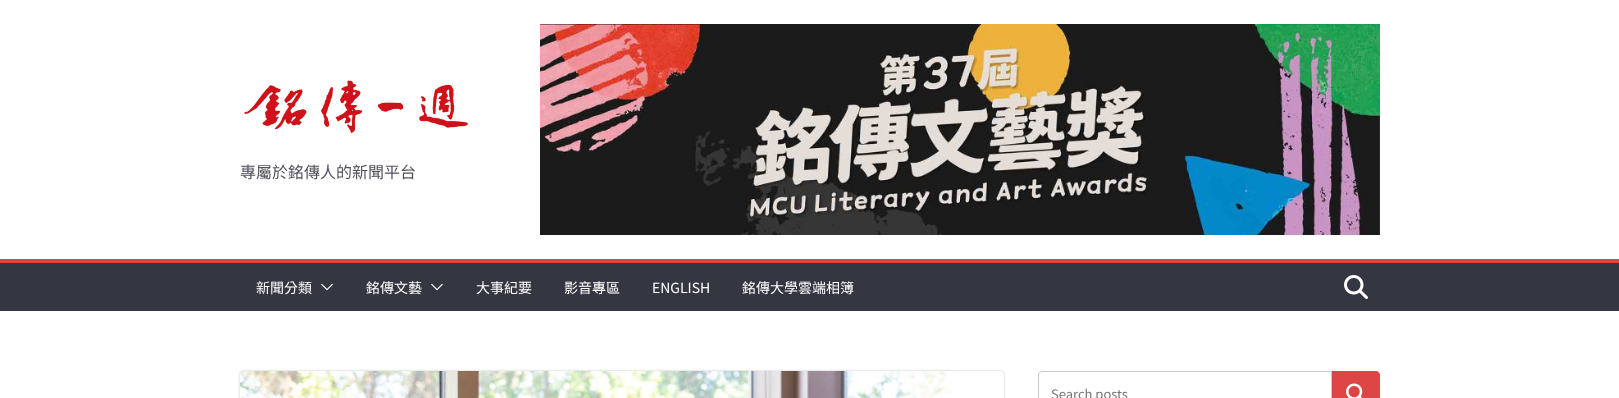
async function draw(canvas) {
	canvas.width = 1619;
	canvas.height = 398;
	const c = canvas.getContext('2d');
	c.miterLimit = 4;
	c.fontKerning = 'normal';
	async function loadImage(src) {
		const img = new Image();
		img.src = src;
		await img.decode();
		return img;
	}

	c.fillStyle = '#fff';
	c.fillRect(0, 0, 1619, 398);
	c.drawImage(await loadImage('img1.png'), 244, 80, 224, 54);
	c.font = '16px Noto Sans TC';
	c.fillStyle = '#52525b';
	c.fillText('專屬於銘傳人的新聞平台', 240, 178);
	c.drawImage(await loadImage('img2.png'), 540, 24, 840, 211);
	c.fillStyle = '#343642';
	c.fillRect(0, 263, 1619, 48);
	c.fillStyle = '#d44';
	c.fillRect(0, 259, 1619, 4);
	c.font = '14px Noto Sans TC';
	c.fillStyle = '#fff';
	c.fillText('新聞分類', 256, 293);
	c.drawImage(await loadImage('img3.png'), 321, 283, 12, 8);
	c.fillText('銘傳文藝', 366, 293);
	c.drawImage(await loadImage('img3.png'), 431, 283, 12, 8);
	for (const [text, x, y] of [
		['大事紀要', 476, 293],
		['影音專區', 564, 293],
		['ENGLISH', 652, 293],
		['銘傳大學雲端相簿', 742, 293],
	]) {
		c.fillText(text, x, y);
	}
	c.drawImage(await loadImage('img4.png'), 1344, 275, 24, 24);
	c.fillStyle = '#0000003d';
	c.filter = 'blur(1px)';
	c.beginPath();
	c.roundRect(240, 371, 764, 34, 4);
	c.fill();
	c.filter = 'none';
	c.drawImage(await loadImage('img5.png'), 240, 371, 764, 27);
	c.beginPath();
	c.moveTo(1042, 371.5);
	c.lineTo(1331.5, 371.5);
	c.lineTo(1331.5, 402.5);
	c.lineTo(1042, 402.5);
	c.bezierCurveTo(1040, 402.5, 1038.5, 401, 1038.5, 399);
	c.lineTo(1038.5, 375);
	c.bezierCurveTo(1038.5, 373, 1040, 371.5, 1042, 371.5);
	c.closePath();
	c.strokeStyle = '#c7c7c7';
	c.stroke();
	c.font = '13px Noto Sans TC';
	c.fillStyle = '#757575';
	c.fillText('Search posts', 1051, 399);
	c.fillStyle = '#d44';
	c.beginPath();
	c.moveTo(1332, 371);
	c.lineTo(1376, 371);
	c.bezierCurveTo(1378, 371, 1380, 373, 1380, 375);
	c.lineTo(1380, 398);
	c.bezierCurveTo(1380, 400, 1378, 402, 1376, 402);
	c.lineTo(1332, 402);
	c.closePath();
	c.fill();
	c.drawImage(await loadImage('img6.png'), 1346, 383, 17, 15);
}

draw(document.querySelector('canvas'));
